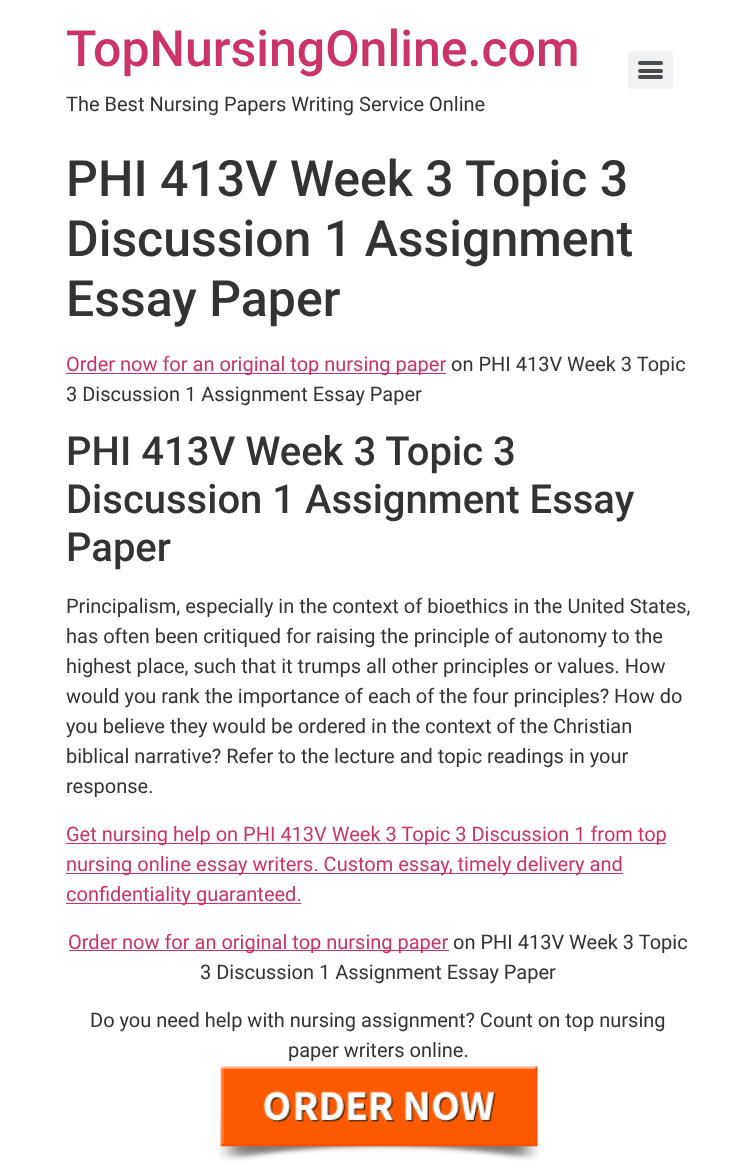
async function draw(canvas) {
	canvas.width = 756;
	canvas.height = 1176;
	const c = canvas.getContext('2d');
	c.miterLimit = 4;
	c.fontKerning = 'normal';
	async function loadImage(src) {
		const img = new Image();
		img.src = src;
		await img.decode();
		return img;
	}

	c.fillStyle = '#fff';
	c.fillRect(0, 0, 756, 1176);
	c.font = '500 50px Roboto';
	c.fillStyle = '#c36';
	c.fillText('TopNursingOnline.com', 66, 66);
	c.font = '20px Roboto';
	c.fillStyle = '#333';
	c.fillText('The Best Nursing Papers Writing Service Online', 66, 111);
	c.fillStyle = '#f2f2f2';
	c.beginPath();
	c.roundRect(628, 51, 45, 38, 4);
	c.fill();
	c.fillStyle = '#494c4f';
	c.beginPath();
	c.roundRect(638, 69, 25, 4, 2);
	c.fill();
	c.beginPath();
	c.roundRect(638, 61, 25, 4, 2);
	c.fill();
	c.beginPath();
	c.roundRect(638, 75, 25, 4, 2);
	c.fill();
	c.font = '500 50px Roboto';
	c.fillStyle = '#333';
	for (const [text, x, y] of [
		['PHI 413V Week 3 Topic 3', 66, 196],
		['Discussion 1 Assignment', 66, 256],
		['Essay Paper', 66, 316],
	]) {
		c.fillText(text, x, y);
	}
	c.fillStyle = '#c36';
	c.fillRect(66, 373, 380, 1);
	c.font = '20px Roboto';
	c.fillText('Order now for an original top nursing paper', 66, 371);
	c.fillStyle = '#333';
	c.fillText('on PHI 413V Week 3 Topic', 451, 371);
	c.fillText('3 Discussion 1 Assignment Essay Paper', 66, 401);
	c.font = '500 40px Roboto';
	for (const [text, x, y] of [
		['PHI 413V Week 3 Topic 3', 66, 465],
		['Discussion 1 Assignment Essay', 66, 513],
		['Paper', 66, 561],
	]) {
		c.fillText(text, x, y);
	}
	c.font = '20px Roboto';
	for (const [text, x, y] of [
		['Principalism, especially in the context of bioethics in the United States,', 66, 613],
		['has often been critiqued for raising the principle of autonomy to the', 66, 643],
		['highest place, such that it trumps all other principles or values. How', 66, 673],
		['would you rank the importance of each of the four principles? How do', 66, 703],
		['you believe they would be ordered in the context of the Christian', 66, 733],
		['biblical narrative? Refer to the lecture and topic readings in your', 66, 763],
		['response.', 66, 793],
	]) {
		c.fillText(text, x, y);
	}
	c.fillStyle = '#c36';
	c.fillRect(66, 843, 600, 1);
	c.fillText('Get nursing help on PHI 413V Week 3 Topic 3 Discussion 1 from top', 66, 841);
	c.fillRect(66, 873, 557, 1);
	c.fillText('nursing online essay writers. Custom essay, timely delivery and', 66, 871);
	c.fillRect(66, 903, 235, 1);
	c.fillText('confidentiality guaranteed.', 66, 901);
	c.fillRect(69, 950, 380, 1);
	c.fillText('Order now for an original top nursing paper', 68, 949);
	c.fillStyle = '#333';
	for (const [text, x, y] of [
		['on PHI 413V Week 3 Topic', 453, 949],
		['3 Discussion 1 Assignment Essay Paper', 200, 979],
		['Do you need help with nursing assignment? Count on top nursing', 90, 1027],
		['paper writers online.', 288, 1057],
	]) {
		c.fillText(text, x, y);
	}
	c.drawImage(await loadImage('img1.png'), 219, 1066, 320, 95);
}

draw(document.querySelector('canvas'));
